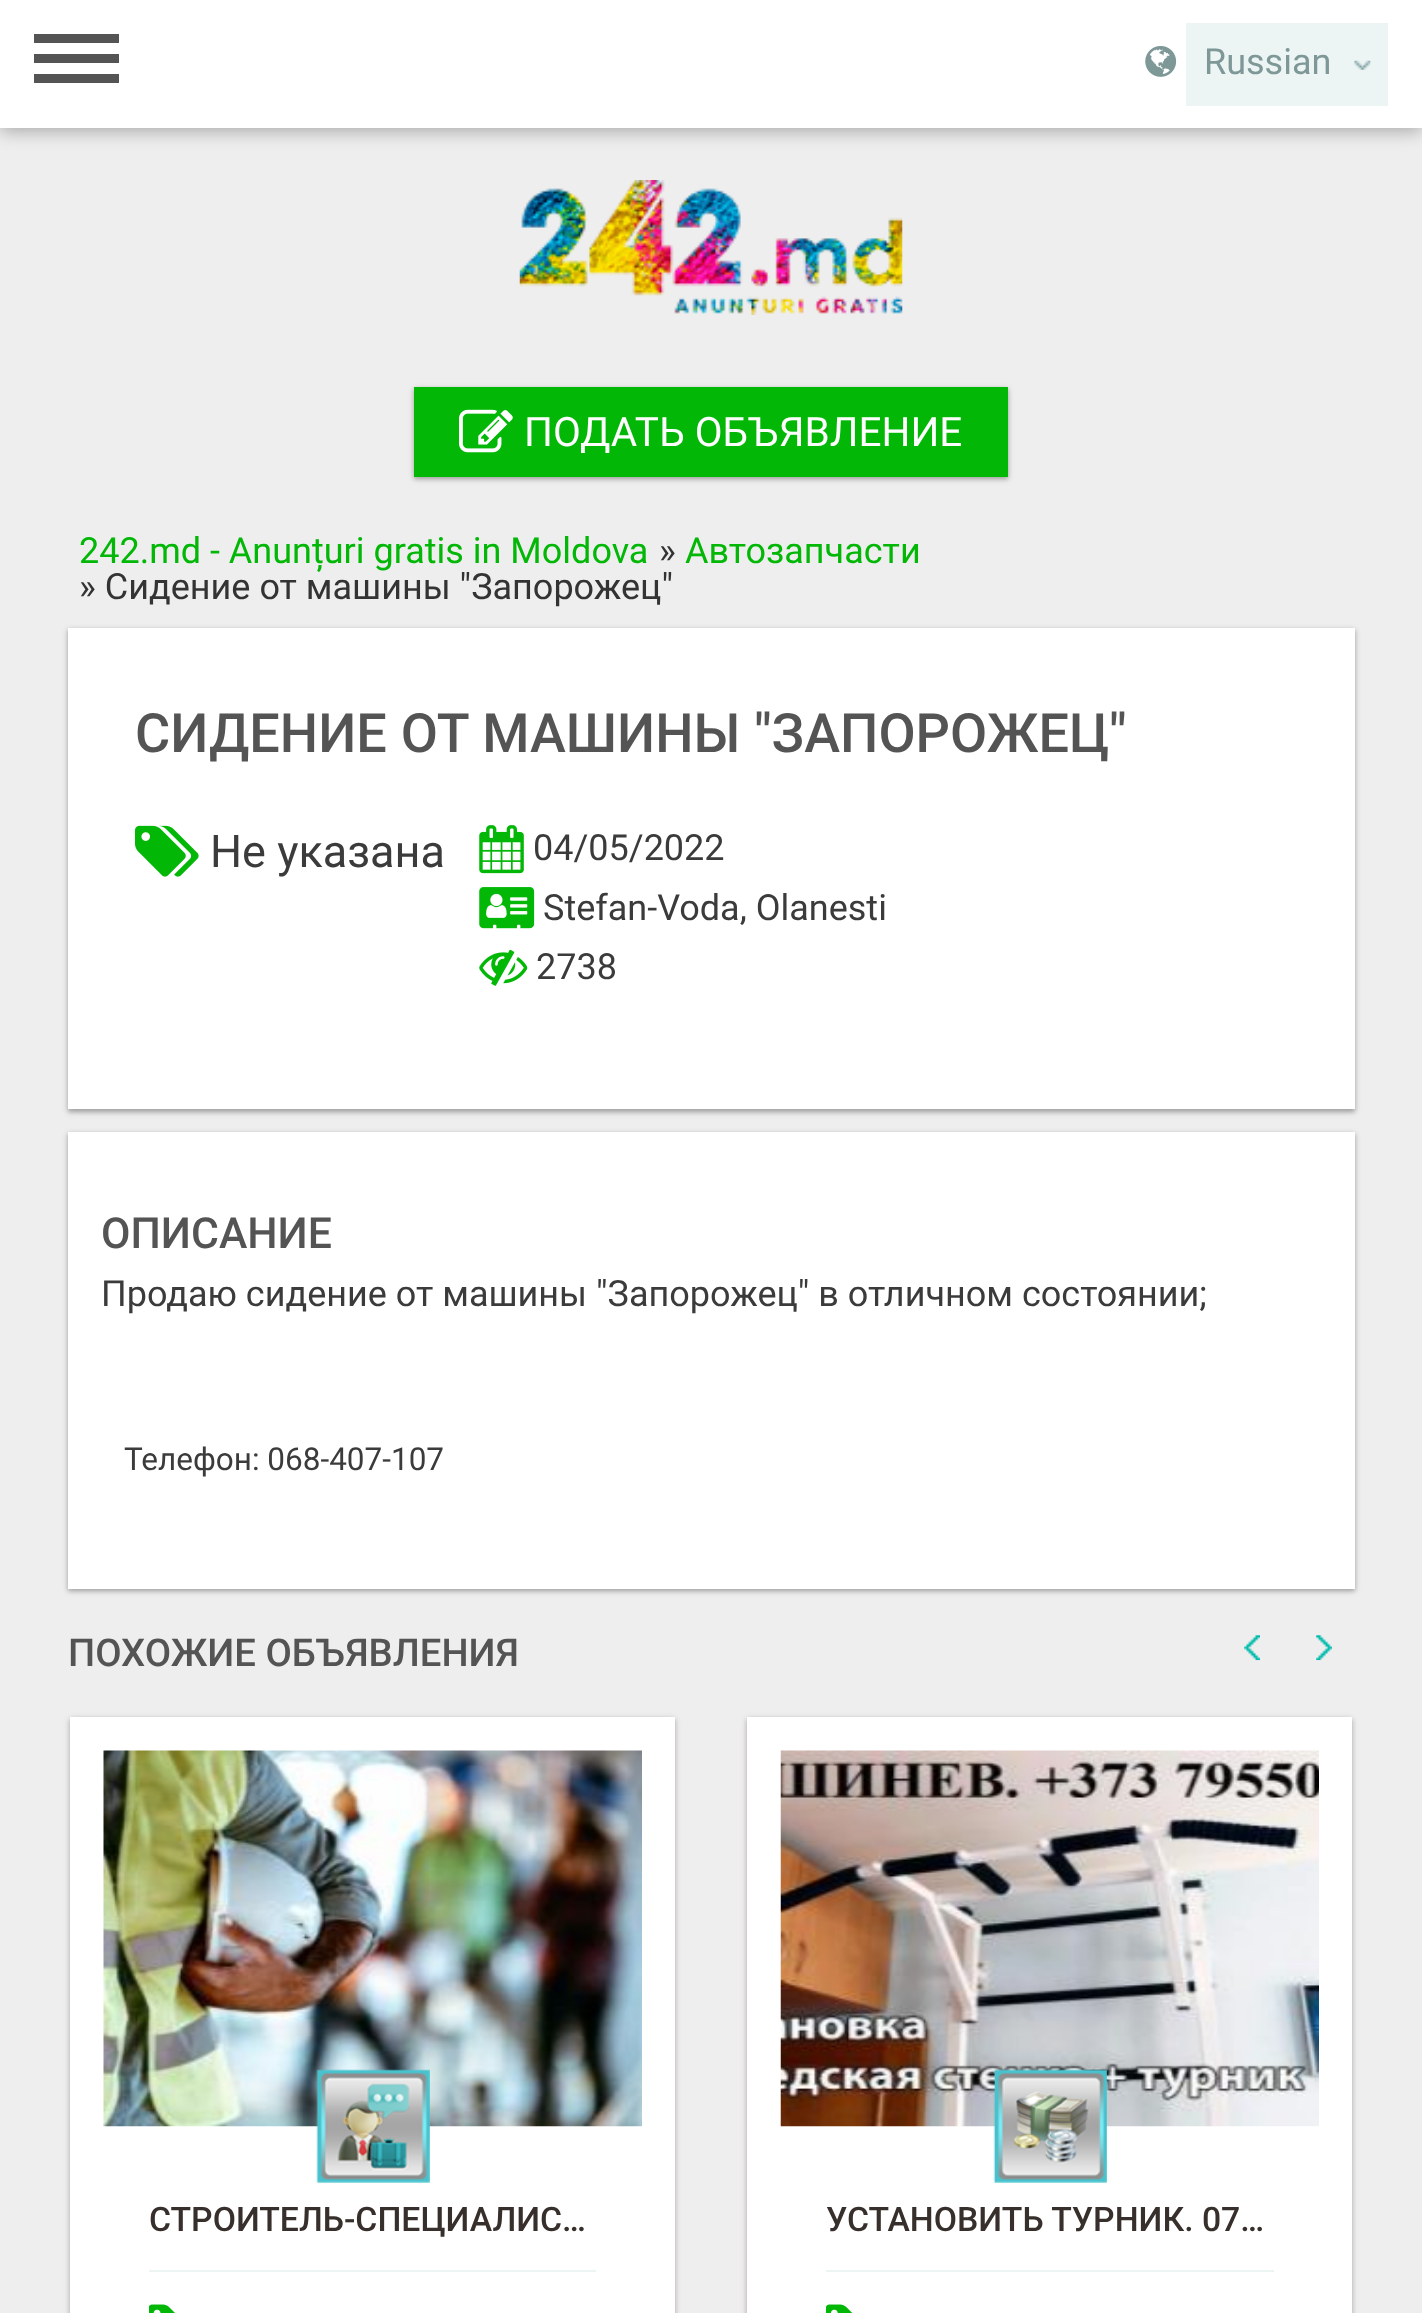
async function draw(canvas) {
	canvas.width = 1422;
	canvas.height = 2313;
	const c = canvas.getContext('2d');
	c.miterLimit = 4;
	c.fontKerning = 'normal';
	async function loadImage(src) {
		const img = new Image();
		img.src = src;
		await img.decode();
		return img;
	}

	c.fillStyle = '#eee';
	c.fillRect(0, 0, 1422, 2313);
	c.fillStyle = '#0000004d';
	c.filter = 'blur(9px)';
	c.beginPath();
	c.rect(0, 2, 1422, 129);
	c.fill();
	c.filter = 'none';
	for (const [x, y, w, h, color] of [
		[0, 0, 1422, 128, '#fff'],
		[34, 34, 85, 9, '#545454'],
		[34, 54, 85, 9, '#545454'],
		[34, 74, 85, 9, '#545454'],
	]) {
		c.fillStyle = color;
		c.fillRect(x, y, w, h);
	}
	c.drawImage(await loadImage('img1.png'), 1145, 46, 32, 31);
	c.fillStyle = '#ecf5f4';
	c.fillRect(1186, 23, 202, 83);
	c.font = '36px Roboto';
	c.fillStyle = '#7e9797';
	c.fillText('Russian', 1204, 74);
	c.drawImage(await loadImage('img2.png'), 1354, 60, 17, 10);
	c.drawImage(await loadImage('img3.png'), 519, 180, 384, 135);
	c.fillStyle = '#0000003d';
	c.filter = 'blur(2px)';
	c.beginPath();
	c.rect(414, 389, 594, 90);
	c.fill();
	c.filter = 'none';
	c.fillStyle = '#0000001f';
	c.filter = 'blur(3.5px)';
	c.beginPath();
	c.rect(414, 389, 594, 90);
	c.fill();
	c.filter = 'none';
	c.fillStyle = '#02b706';
	c.fillRect(414, 387, 594, 90);
	c.drawImage(await loadImage('img4.png'), 459, 409, 54, 44);
	c.font = '40.5px Roboto';
	c.fillStyle = '#fff';
	c.fillText('ПОДАТЬ ОБЪЯВЛЕНИЕ', 524, 446);
	c.font = '36px Roboto';
	c.fillStyle = '#02b706';
	c.fillText('242.md - Anunțuri gratis in Moldova', 79, 563);
	c.fillStyle = '#333';
	c.fillText('»', 659, 563);
	c.fillStyle = '#02b706';
	c.fillText('Автозапчасти', 685, 563);
	c.fillStyle = '#333';
	c.fillText('» Сидение от машины "Запорожец"', 79, 599);
	c.fillStyle = '#0000003d';
	c.filter = 'blur(2px)';
	c.beginPath();
	c.rect(68, 630, 1287, 482);
	c.fill();
	c.filter = 'none';
	c.fillStyle = '#0000001f';
	c.filter = 'blur(3.5px)';
	c.beginPath();
	c.rect(68, 630, 1287, 482);
	c.fill();
	c.filter = 'none';
	c.fillStyle = '#fff';
	c.fillRect(68, 628, 1287, 481);
	c.wordSpacing = '0.5px';
	c.font = '500 54px Roboto';
	c.fillStyle = '#545454';
	c.fillText('СИДЕНИЕ ОТ МАШИНЫ "ЗАПОРОЖЕЦ"', 135, 752);
	c.drawImage(await loadImage('img5.png'), 135, 825, 64, 52);
	c.wordSpacing = '0px';
	c.font = '45px Roboto';
	c.fillStyle = '#3b3b3b';
	c.fillText('Не указана', 210, 867);
	c.drawImage(await loadImage('img6.png'), 479, 825, 45, 49);
	c.font = '36px Roboto';
	c.fillText('04/05/2022', 533, 860);
	c.drawImage(await loadImage('img7.png'), 479, 887, 56, 42);
	c.fillText('Stefan-Voda, Olanesti', 543, 920);
	c.drawImage(await loadImage('img8.png'), 479, 949, 49, 37);
	c.fillText('2738', 536, 979);
	c.fillStyle = '#0000003d';
	c.filter = 'blur(2px)';
	c.beginPath();
	c.rect(68, 1134, 1287, 457);
	c.fill();
	c.filter = 'none';
	c.fillStyle = '#0000001f';
	c.filter = 'blur(3.5px)';
	c.beginPath();
	c.rect(68, 1134, 1287, 457);
	c.fill();
	c.filter = 'none';
	c.fillStyle = '#fff';
	c.fillRect(68, 1132, 1287, 457);
	c.font = '500 42.75px Roboto';
	c.fillStyle = '#545454';
	c.fillText('ОПИСАНИЕ', 101, 1248);
	c.font = '36px Roboto';
	c.fillStyle = '#3b3b3b';
	c.fillText('Продаю сидение от машины "Запорожец" в отличном состоянии;', 101, 1306);
	c.font = '31.5px Roboto';
	c.fillText('Телефон: 068-407-107', 124, 1470);
	c.font = '500 38.25px Roboto';
	c.fillStyle = '#545454';
	c.fillText('ПОХОЖИЕ ОБЪЯВЛЕНИЯ', 68, 1666);
	c.drawImage(await loadImage('img9.png'), 1244, 1635, 16, 26);
	c.drawImage(await loadImage('img10.png'), 1316, 1635, 16, 26);
	c.fillStyle = '#f5f1f1';
	c.fillRect(675, 1717, 2, 596);
	c.fillRect(68, 1717, 2, 596);
	c.fillStyle = '#0000003d';
	c.filter = 'blur(2px)';
	c.beginPath();
	c.rect(70, 1719, 605, 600);
	c.fill();
	c.filter = 'none';
	c.fillStyle = '#0000001f';
	c.filter = 'blur(3.5px)';
	c.beginPath();
	c.rect(70, 1719, 605, 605);
	c.fill();
	c.filter = 'none';
	c.fillStyle = '#fff';
	c.fillRect(70, 1717, 605, 596);
	c.drawImage(await loadImage('img11.png'), 103, 1750, 539, 377);
	c.drawImage(await loadImage('img12.png'), 316, 2069, 114, 114);
	c.fillStyle = '#edf5f4';
	c.fillRect(149, 2270, 447, 2);
	c.font = '500 33.75px Roboto';
	c.fillStyle = '#372f2b';
	c.fillText('СТРОИТЕЛЬ-СПЕЦИАЛИС…', 149, 2231);
	c.drawImage(await loadImage('img13.png'), 149, 2304, 26, 9);
	c.fillStyle = '#f5f1f1';
	c.fillRect(1352, 1717, 2, 596);
	c.fillRect(745, 1717, 2, 596);
	c.fillStyle = '#0000003d';
	c.filter = 'blur(2px)';
	c.beginPath();
	c.rect(747, 1719, 605, 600);
	c.fill();
	c.filter = 'none';
	c.fillStyle = '#0000001f';
	c.filter = 'blur(3.5px)';
	c.beginPath();
	c.rect(747, 1719, 605, 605);
	c.fill();
	c.filter = 'none';
	c.fillStyle = '#fff';
	c.fillRect(747, 1717, 605, 596);
	c.drawImage(await loadImage('img14.png'), 780, 1750, 539, 377);
	c.drawImage(await loadImage('img15.png'), 993, 2069, 114, 114);
	c.fillStyle = '#edf5f4';
	c.fillRect(826, 2270, 448, 2);
	c.fillStyle = '#372f2b';
	c.fillText('УСТАНОВИТЬ ТУРНИК. 07…', 826, 2231);
	c.drawImage(await loadImage('img16.png'), 826, 2304, 27, 9);
}

draw(document.querySelector('canvas'));
